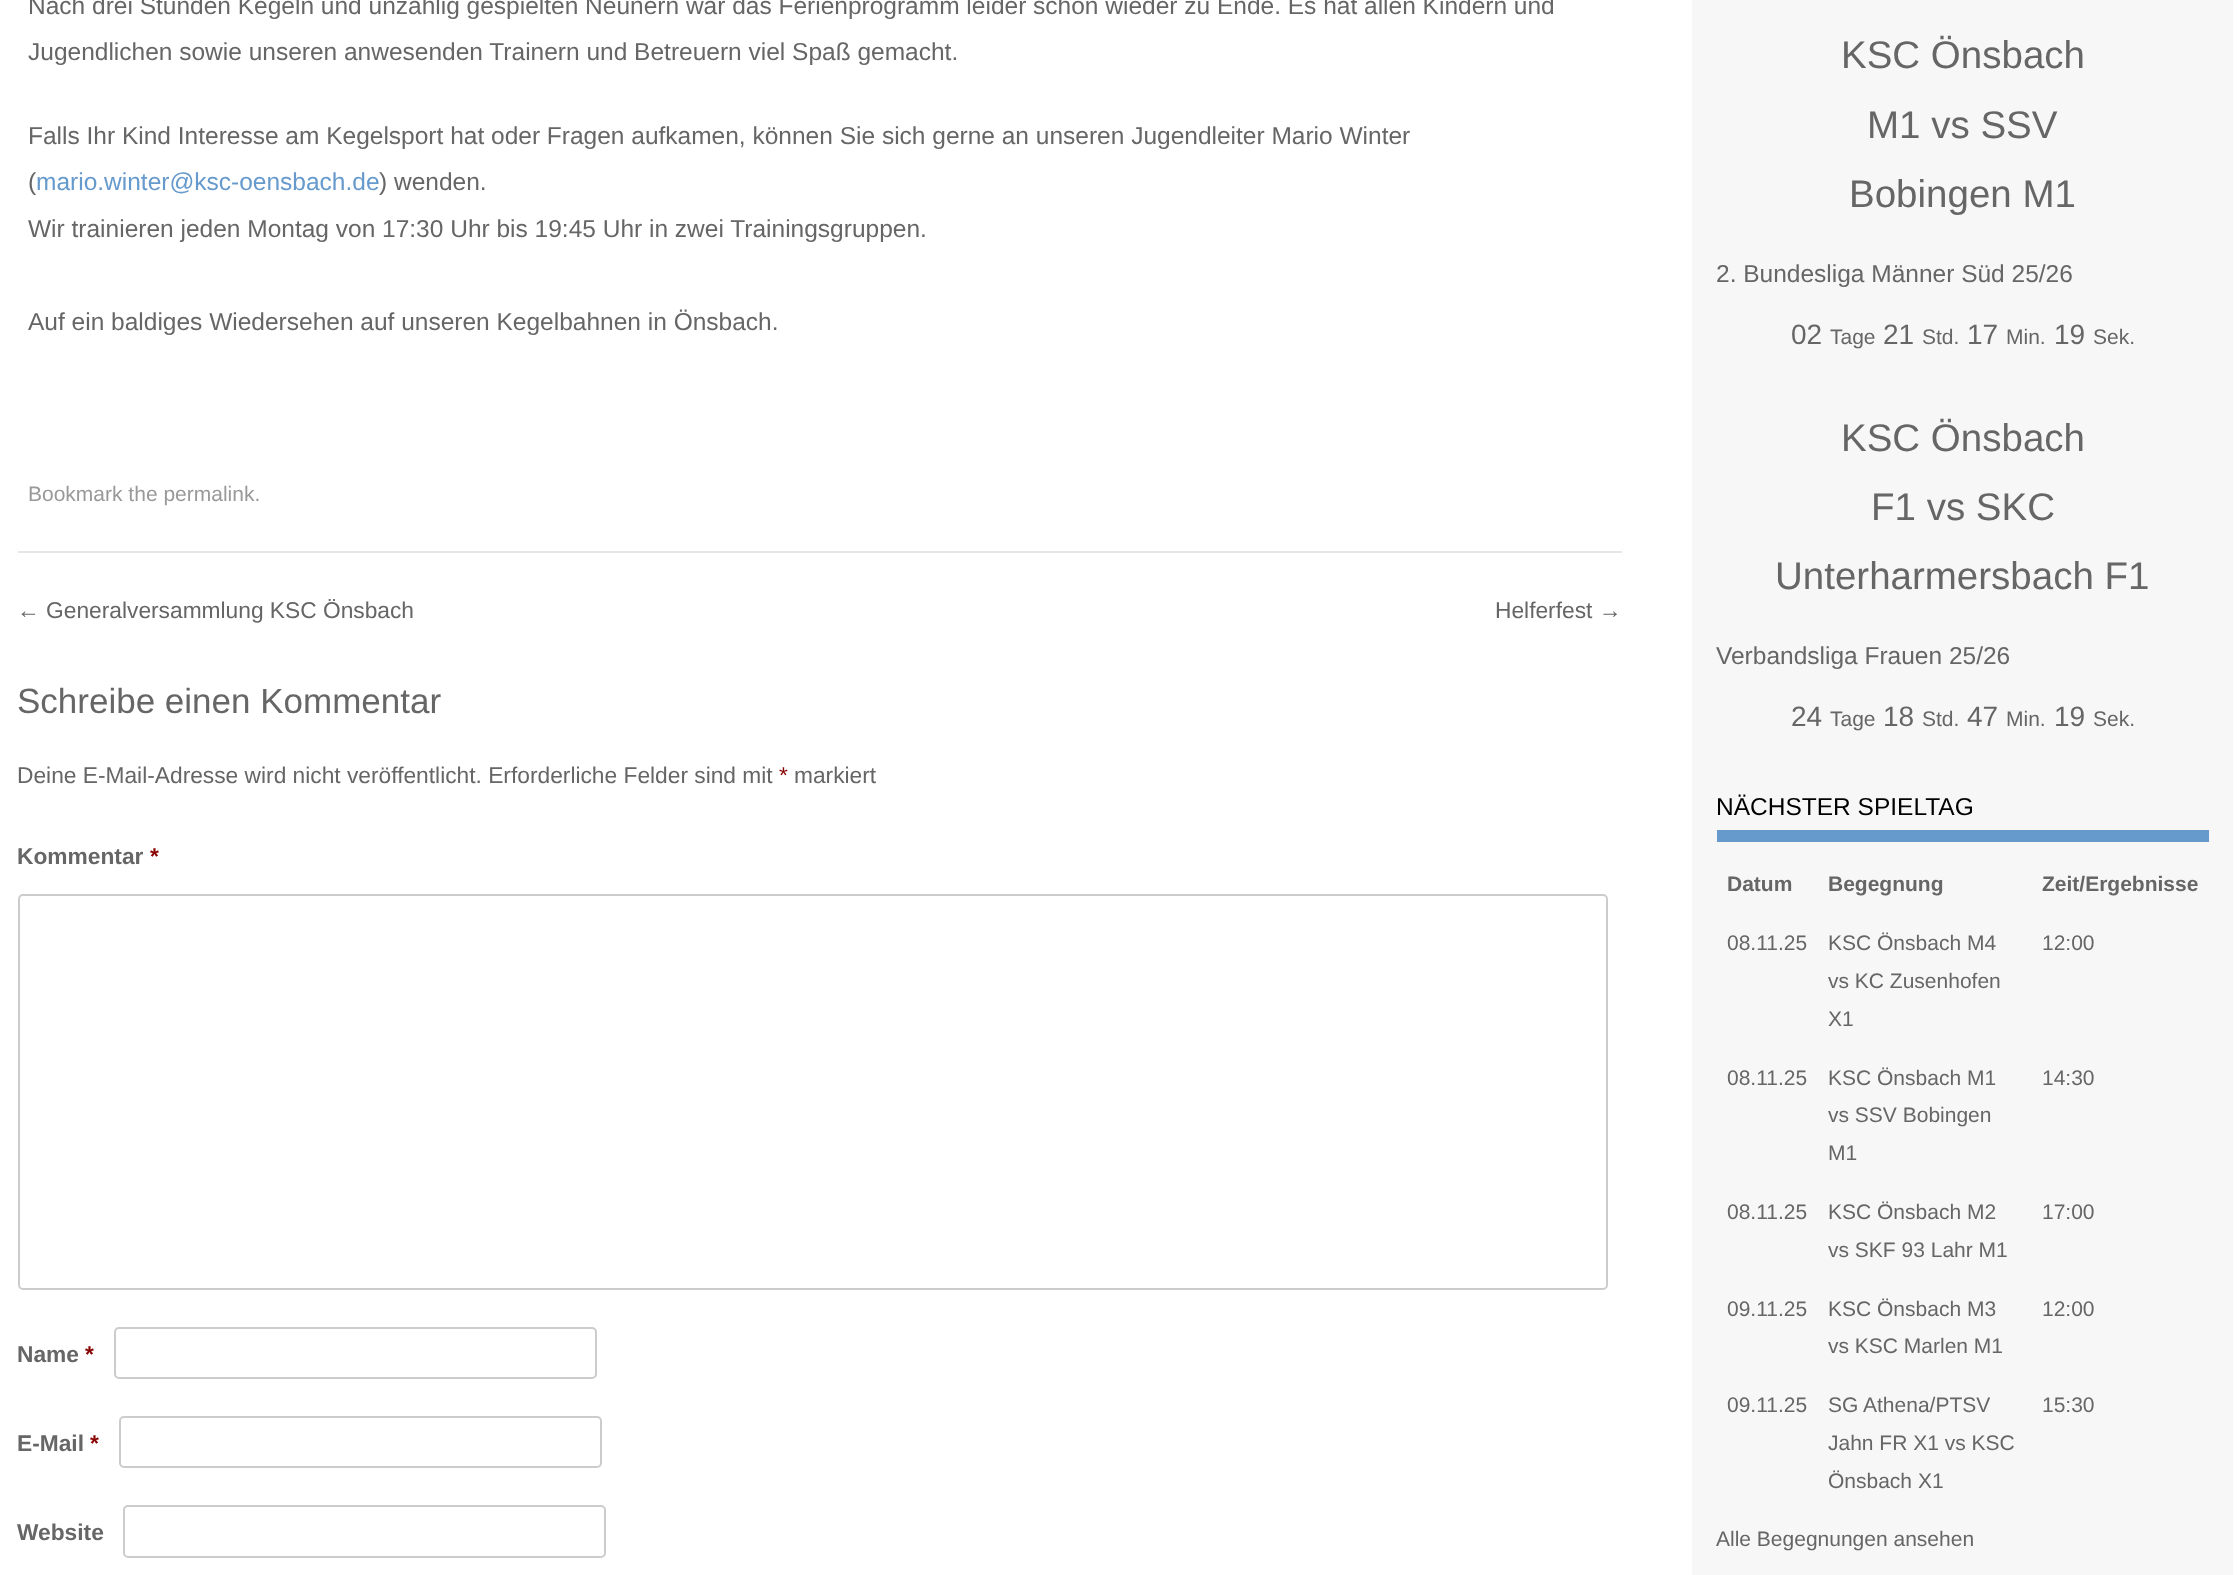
async function draw(canvas) {
	canvas.width = 2238;
	canvas.height = 1575;
	const c = canvas.getContext('2d');
	c.miterLimit = 4;
	c.fontKerning = 'normal';

	c.fillStyle = '#fff';
	c.fillRect(0, 0, 2238, 1575);
	c.fillStyle = '#e6e6e6';
	c.fillRect(18, 551, 1604, 2);
	c.font = '24.5px Liberation Sans';
	c.fillStyle = '#666';
	for (const [text, x, y] of [
		['Nach drei Stunden Kegeln und unzählig gespielten Neunern war das Ferienprogramm leider schon wieder zu Ende. Es hat allen Kindern und', 28, 14],
		['Jugendlichen sowie unseren anwesenden Trainern und Betreuern viel Spaß gemacht.', 28, 60],
		['Falls Ihr Kind Interesse am Kegelsport hat oder Fragen aufkamen, können Sie sich gerne an unseren Jugendleiter Mario Winter', 28, 144],
		['(', 28, 190],
	]) {
		c.fillText(text, x, y);
	}
	c.fillStyle = '#69c';
	c.fillText('mario.winter@ksc-oensbach.de', 36, 190);
	c.fillStyle = '#666';
	for (const [text, x, y] of [
		[') wenden.', 379, 190],
		['Wir trainieren jeden Montag von 17:30 Uhr bis 19:45 Uhr in zwei Trainingsgruppen.', 28, 237],
		['Auf ein baldiges Wiedersehen auf unseren Kegelbahnen in Önsbach.', 28, 330],
	]) {
		c.fillText(text, x, y);
	}
	c.font = '21px Liberation Sans';
	c.fillStyle = '#999';
	c.fillText('Bookmark the permalink.', 28, 501);
	c.font = '22.75px Liberation Sans';
	c.fillStyle = '#666';
	c.fillText('← Generalversammlung KSC Önsbach', 17, 618);
	c.fillText('Helferfest →', 1495, 618);
	c.font = '35px Liberation Sans';
	c.fillText('Schreibe einen Kommentar', 17, 713);
	c.font = '22.75px Liberation Sans';
	c.fillText('Deine E-Mail-Adresse wird nicht veröffentlicht. Erforderliche Felder sind mit', 17, 783);
	c.fillStyle = '#800';
	c.fillText('*', 779, 783);
	c.fillStyle = '#666';
	c.fillText('markiert', 794, 783);
	c.font = 'bold 22.75px Liberation Sans';
	c.fillText('Kommentar', 17, 864);
	c.fillStyle = '#800';
	c.fillText('*', 150, 864);
	c.beginPath();
	c.roundRect(19, 895, 1588, 394, 4);
	c.strokeStyle = '#ccc';
	c.lineWidth = 2;
	c.stroke();
	c.fillStyle = '#666';
	c.fillText('Name', 17, 1362);
	c.fillStyle = '#800';
	c.fillText('*', 85, 1362);
	c.beginPath();
	c.roundRect(115, 1328, 481, 50, 4);
	c.stroke();
	c.fillStyle = '#666';
	c.fillText('E-Mail', 17, 1451);
	c.fillStyle = '#800';
	c.fillText('*', 90, 1451);
	c.beginPath();
	c.roundRect(120, 1417, 481, 50, 4);
	c.stroke();
	c.fillStyle = '#666';
	c.fillText('Website', 17, 1540);
	c.beginPath();
	c.roundRect(124, 1506, 481, 51, 4);
	c.stroke();
	c.fillStyle = '#f7f7f7';
	c.fillRect(1692, 0, 541, 1575);
	c.font = '38.5px Liberation Sans';
	c.fillStyle = '#666';
	for (const [text, x, y] of [
		['KSC Önsbach', 1841, 68],
		['M1 vs SSV', 1867, 138],
		['Bobingen M1', 1849, 207],
	]) {
		c.fillText(text, x, y);
	}
	c.font = '24.5px Liberation Sans';
	c.fillText('2. Bundesliga Männer Süd 25/26', 1716, 282);
	c.font = '28px Liberation Sans';
	c.fillText('02', 1791, 344);
	c.font = '21px Liberation Sans';
	c.fillText('Tage', 1830, 344);
	c.font = '28px Liberation Sans';
	c.fillText('21', 1883, 344);
	c.font = '21px Liberation Sans';
	c.fillText('Std.', 1922, 344);
	c.font = '28px Liberation Sans';
	c.fillText('17', 1967, 344);
	c.font = '21px Liberation Sans';
	c.fillText('Min.', 2006, 344);
	c.font = '28px Liberation Sans';
	c.fillText('19', 2054, 344);
	c.font = '21px Liberation Sans';
	c.fillText('Sek.', 2093, 344);
	c.font = '38.5px Liberation Sans';
	for (const [text, x, y] of [
		['KSC Önsbach', 1841, 451],
		['F1 vs SKC', 1871, 520],
		['Unterharmersbach F1', 1775, 589],
	]) {
		c.fillText(text, x, y);
	}
	c.font = '24.5px Liberation Sans';
	c.fillText('Verbandsliga Frauen 25/26', 1716, 664);
	c.font = '28px Liberation Sans';
	c.fillText('24', 1791, 726);
	c.font = '21px Liberation Sans';
	c.fillText('Tage', 1830, 726);
	c.font = '28px Liberation Sans';
	c.fillText('18', 1883, 726);
	c.font = '21px Liberation Sans';
	c.fillText('Std.', 1922, 726);
	c.font = '28px Liberation Sans';
	c.fillText('47', 1967, 726);
	c.font = '21px Liberation Sans';
	c.fillText('Min.', 2006, 726);
	c.font = '28px Liberation Sans';
	c.fillText('19', 2054, 726);
	c.font = '21px Liberation Sans';
	c.fillText('Sek.', 2093, 726);
	c.fillStyle = '#69c';
	c.fillRect(1717, 830, 492, 12);
	c.font = '24.5px Liberation Sans';
	c.fillStyle = '#000';
	c.fillText('NÄCHSTER SPIELTAG', 1716, 815);
	c.font = 'bold 21px Liberation Sans';
	c.fillStyle = '#666';
	for (const [text, x, y] of [
		['Datum', 1727, 891],
		['Begegnung', 1828, 891],
		['Zeit/Ergebnisse', 2042, 891],
	]) {
		c.fillText(text, x, y);
	}
	c.font = '21px Liberation Sans';
	for (const [text, x, y] of [
		['08.11.25', 1727, 950],
		['KSC Önsbach M4', 1828, 950],
		['vs KC Zusenhofen', 1828, 988],
		['X1', 1828, 1026],
		['12:00', 2042, 950],
		['08.11.25', 1727, 1085],
		['KSC Önsbach M1', 1828, 1085],
		['vs SSV Bobingen', 1828, 1122],
		['M1', 1828, 1160],
		['14:30', 2042, 1085],
		['08.11.25', 1727, 1219],
		['KSC Önsbach M2', 1828, 1219],
		['vs SKF 93 Lahr M1', 1828, 1257],
		['17:00', 2042, 1219],
		['09.11.25', 1727, 1316],
		['KSC Önsbach M3', 1828, 1316],
		['vs KSC Marlen M1', 1828, 1353],
		['12:00', 2042, 1316],
		['09.11.25', 1727, 1412],
		['SG Athena/PTSV', 1828, 1412],
		['Jahn FR X1 vs KSC', 1828, 1450],
		['Önsbach X1', 1828, 1488],
		['15:30', 2042, 1412],
		['Alle Begegnungen ansehen', 1716, 1546],
	]) {
		c.fillText(text, x, y);
	}
}

draw(document.querySelector('canvas'));
